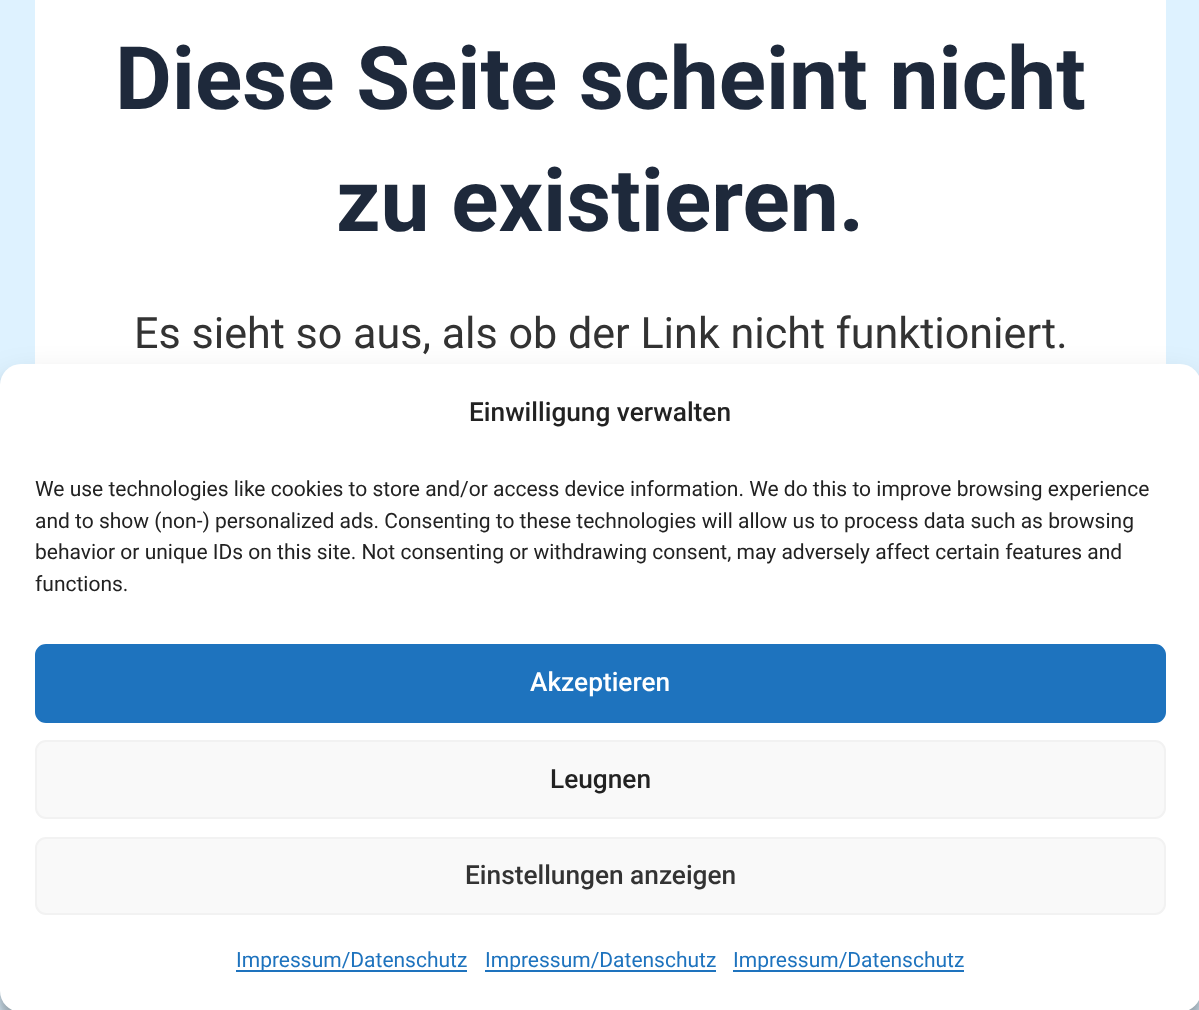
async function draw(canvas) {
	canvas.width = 1199;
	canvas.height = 1010;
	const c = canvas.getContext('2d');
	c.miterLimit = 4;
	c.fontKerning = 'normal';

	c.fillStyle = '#def2ff';
	c.fillRect(0, 0, 1199, 1010);
	c.fillStyle = '#fff';
	c.fillRect(35, 0, 1131, 364);
	c.font = 'bold 87.5px Roboto';
	c.fillStyle = '#1e293b';
	c.fillText('Diese Seite scheint nicht', 115, 109);
	c.fillText('zu existieren.', 336, 231);
	c.font = '43.1px Roboto';
	c.fillStyle = '#333';
	c.fillText('Es sieht so aus, als ob der Link nicht funktioniert.', 134, 348);
	c.fillStyle = '#0000003b';
	c.filter = 'blur(5px)';
	c.beginPath();
	c.roundRect(0, 375, 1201, 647, 21);
	c.fill();
	c.filter = 'none';
	c.fillStyle = '#00000030';
	c.filter = 'blur(17.5px)';
	c.beginPath();
	c.roundRect(0, 382, 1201, 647, 21);
	c.fill();
	c.filter = 'none';
	c.fillStyle = '#fff';
	c.beginPath();
	c.roundRect(0, 364, 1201, 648, 21);
	c.fill();
	c.font = '500 26.25px Roboto';
	c.fillStyle = '#222';
	c.fillText('Einwilligung verwalten', 469, 421);
	c.font = '21px Roboto';
	for (const [text, x, y] of [
		['We use technologies like cookies to store and/or access device information. We do this to improve browsing experience', 35, 496],
		['and to show (non-) personalized ads. Consenting to these technologies will allow us to process data such as browsing', 35, 528],
		['behavior or unique IDs on this site. Not consenting or withdrawing consent, may adversely affect certain features and', 35, 559],
		['functions.', 35, 591],
	]) {
		c.fillText(text, x, y);
	}
	c.fillStyle = '#1e73be';
	c.beginPath();
	c.roundRect(36, 645, 1129, 77, 10);
	c.fill();
	c.strokeStyle = '#1e73be';
	c.lineWidth = 2;
	c.stroke();
	c.font = '500 26.25px Roboto';
	c.fillStyle = '#fff';
	c.fillText('Akzeptieren', 530, 691);
	c.fillStyle = '#f9f9f9';
	c.beginPath();
	c.roundRect(36, 741, 1129, 77, 10);
	c.fill();
	c.strokeStyle = '#f2f2f2';
	c.stroke();
	c.fillStyle = '#222';
	c.fillText('Leugnen', 550, 788);
	c.fillStyle = '#f9f9f9';
	c.beginPath();
	c.roundRect(36, 838, 1129, 76, 10);
	c.fill();
	c.stroke();
	c.fillStyle = '#333';
	c.fillText('Einstellungen anzeigen', 465, 884);
	c.fillStyle = '#1e73be';
	c.fillRect(236, 970, 231, 2);
	c.font = '21px Roboto';
	c.fillText('Impressum/Datenschutz', 236, 967);
	c.fillRect(485, 970, 231, 2);
	c.fillText('Impressum/Datenschutz', 485, 967);
	c.fillRect(733, 970, 231, 2);
	c.fillText('Impressum/Datenschutz', 733, 967);
}

draw(document.querySelector('canvas'));
